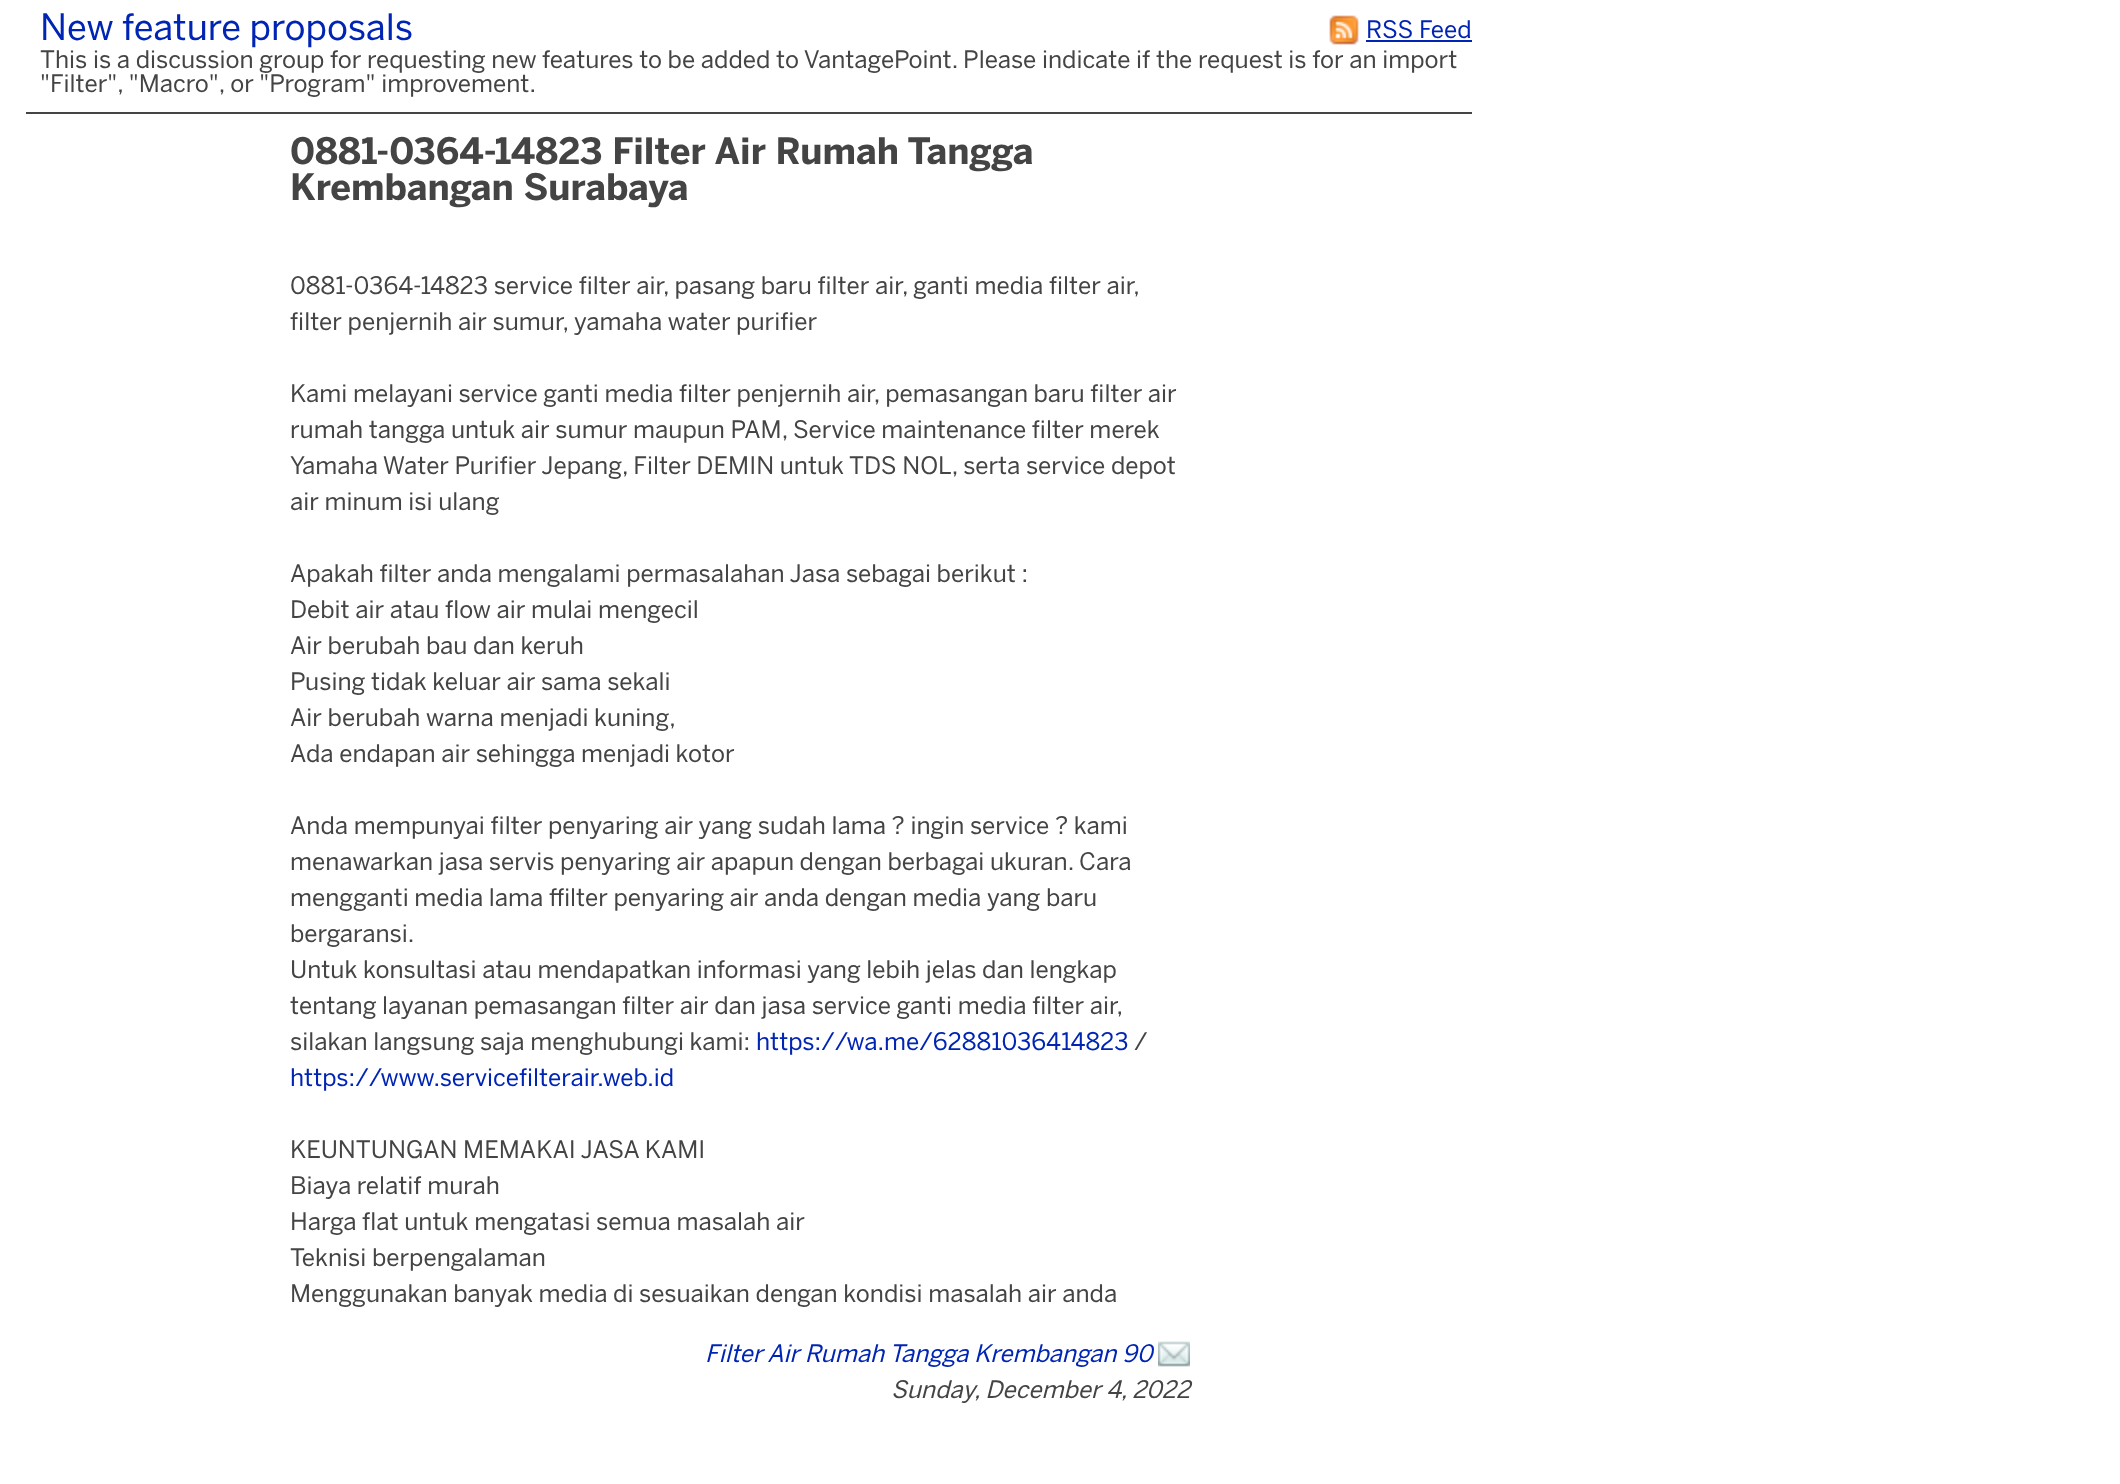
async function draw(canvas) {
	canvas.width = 2120;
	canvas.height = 1484;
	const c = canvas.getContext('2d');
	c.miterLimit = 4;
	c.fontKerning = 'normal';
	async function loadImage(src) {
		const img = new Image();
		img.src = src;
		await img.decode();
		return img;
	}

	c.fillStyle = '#fff';
	c.fillRect(0, 0, 2120, 1484);
	c.font = '36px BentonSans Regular';
	c.fillStyle = '#0024b3';
	c.fillText('New feature proposals', 40, 40);
	c.drawImage(await loadImage('img1.png'), 1329, 15, 30, 30);
	c.font = '24px BentonSans Regular';
	c.fillText('RSS Feed', 1366, 38);
	c.fillRect(1366, 40, 106, 2);
	c.fillStyle = '#444';
	c.fillRect(26, 112, 1446, 2);
	c.fillText('This is a discussion group for requesting new features to be added to VantagePoint. Please indicate if the request is for an import', 40, 68);
	c.fillText('"Filter", "Macro", or "Program" improvement.', 40, 92);
	c.font = 'bold 36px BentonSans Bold';
	c.fillText('0881-0364-14823 Filter Air Rumah Tangga', 290, 164);
	c.fillText('Krembangan Surabaya', 290, 200);
	c.font = '24px BentonSans Regular';
	for (const [text, x, y] of [
		['0881-0364-14823 service filter air, pasang baru filter air, ganti media filter air,', 290, 294],
		['filter penjernih air sumur, yamaha water purifier', 290, 330],
		['Kami melayani service ganti media filter penjernih air, pemasangan baru filter air', 290, 402],
		['rumah tangga untuk air sumur maupun PAM, Service maintenance filter merek', 290, 438],
		['Yamaha Water Purifier Jepang, Filter DEMIN untuk TDS NOL, serta service depot', 290, 474],
		['air minum isi ulang', 290, 510],
		['Apakah filter anda mengalami permasalahan Jasa sebagai berikut :', 290, 582],
		['Debit air atau flow air mulai mengecil', 290, 618],
		['Air berubah bau dan keruh', 290, 654],
		['Pusing tidak keluar air sama sekali', 290, 690],
		['Air berubah warna menjadi kuning,', 290, 726],
		['Ada endapan air sehingga menjadi kotor', 290, 762],
		['Anda mempunyai filter penyaring air yang sudah lama ? ingin service ? kami', 290, 834],
		['menawarkan jasa servis penyaring air apapun dengan berbagai ukuran. Cara', 290, 870],
		['mengganti media lama ffilter penyaring air anda dengan media yang baru', 290, 906],
		['bergaransi.', 290, 942],
		['Untuk konsultasi atau mendapatkan informasi yang lebih jelas dan lengkap', 290, 978],
		['tentang layanan pemasangan filter air dan jasa service ganti media filter air,', 290, 1014],
		['silakan langsung saja menghubungi kami:', 290, 1050],
	]) {
		c.fillText(text, x, y);
	}
	c.fillStyle = '#0024b3';
	c.fillText('https://wa.me/62881036414823', 756, 1050);
	c.fillStyle = '#444';
	c.fillText('/', 1134, 1050);
	c.fillStyle = '#0024b3';
	c.fillText('https://www.servicefilterair.web.id', 290, 1086);
	c.fillStyle = '#444';
	for (const [text, x, y] of [
		['KEUNTUNGAN MEMAKAI JASA KAMI', 290, 1158],
		['Biaya relatif murah', 290, 1194],
		['Harga flat untuk mengatasi semua masalah air', 290, 1230],
		['Teknisi berpengalaman', 290, 1266],
		['Menggunakan banyak media di sesuaikan dengan kondisi masalah air anda', 290, 1302],
	]) {
		c.fillText(text, x, y);
	}
	c.font = 'italic 24px BentonSans Regular';
	c.fillStyle = '#0024b3';
	c.fillText('Filter Air Rumah Tangga Krembangan 90', 705, 1362);
	c.drawImage(await loadImage('img2.png'), 1158, 1341, 32, 26);
	c.fillStyle = '#444';
	c.fillText('Sunday, December 4, 2022', 891, 1398);
}

draw(document.querySelector('canvas'));
